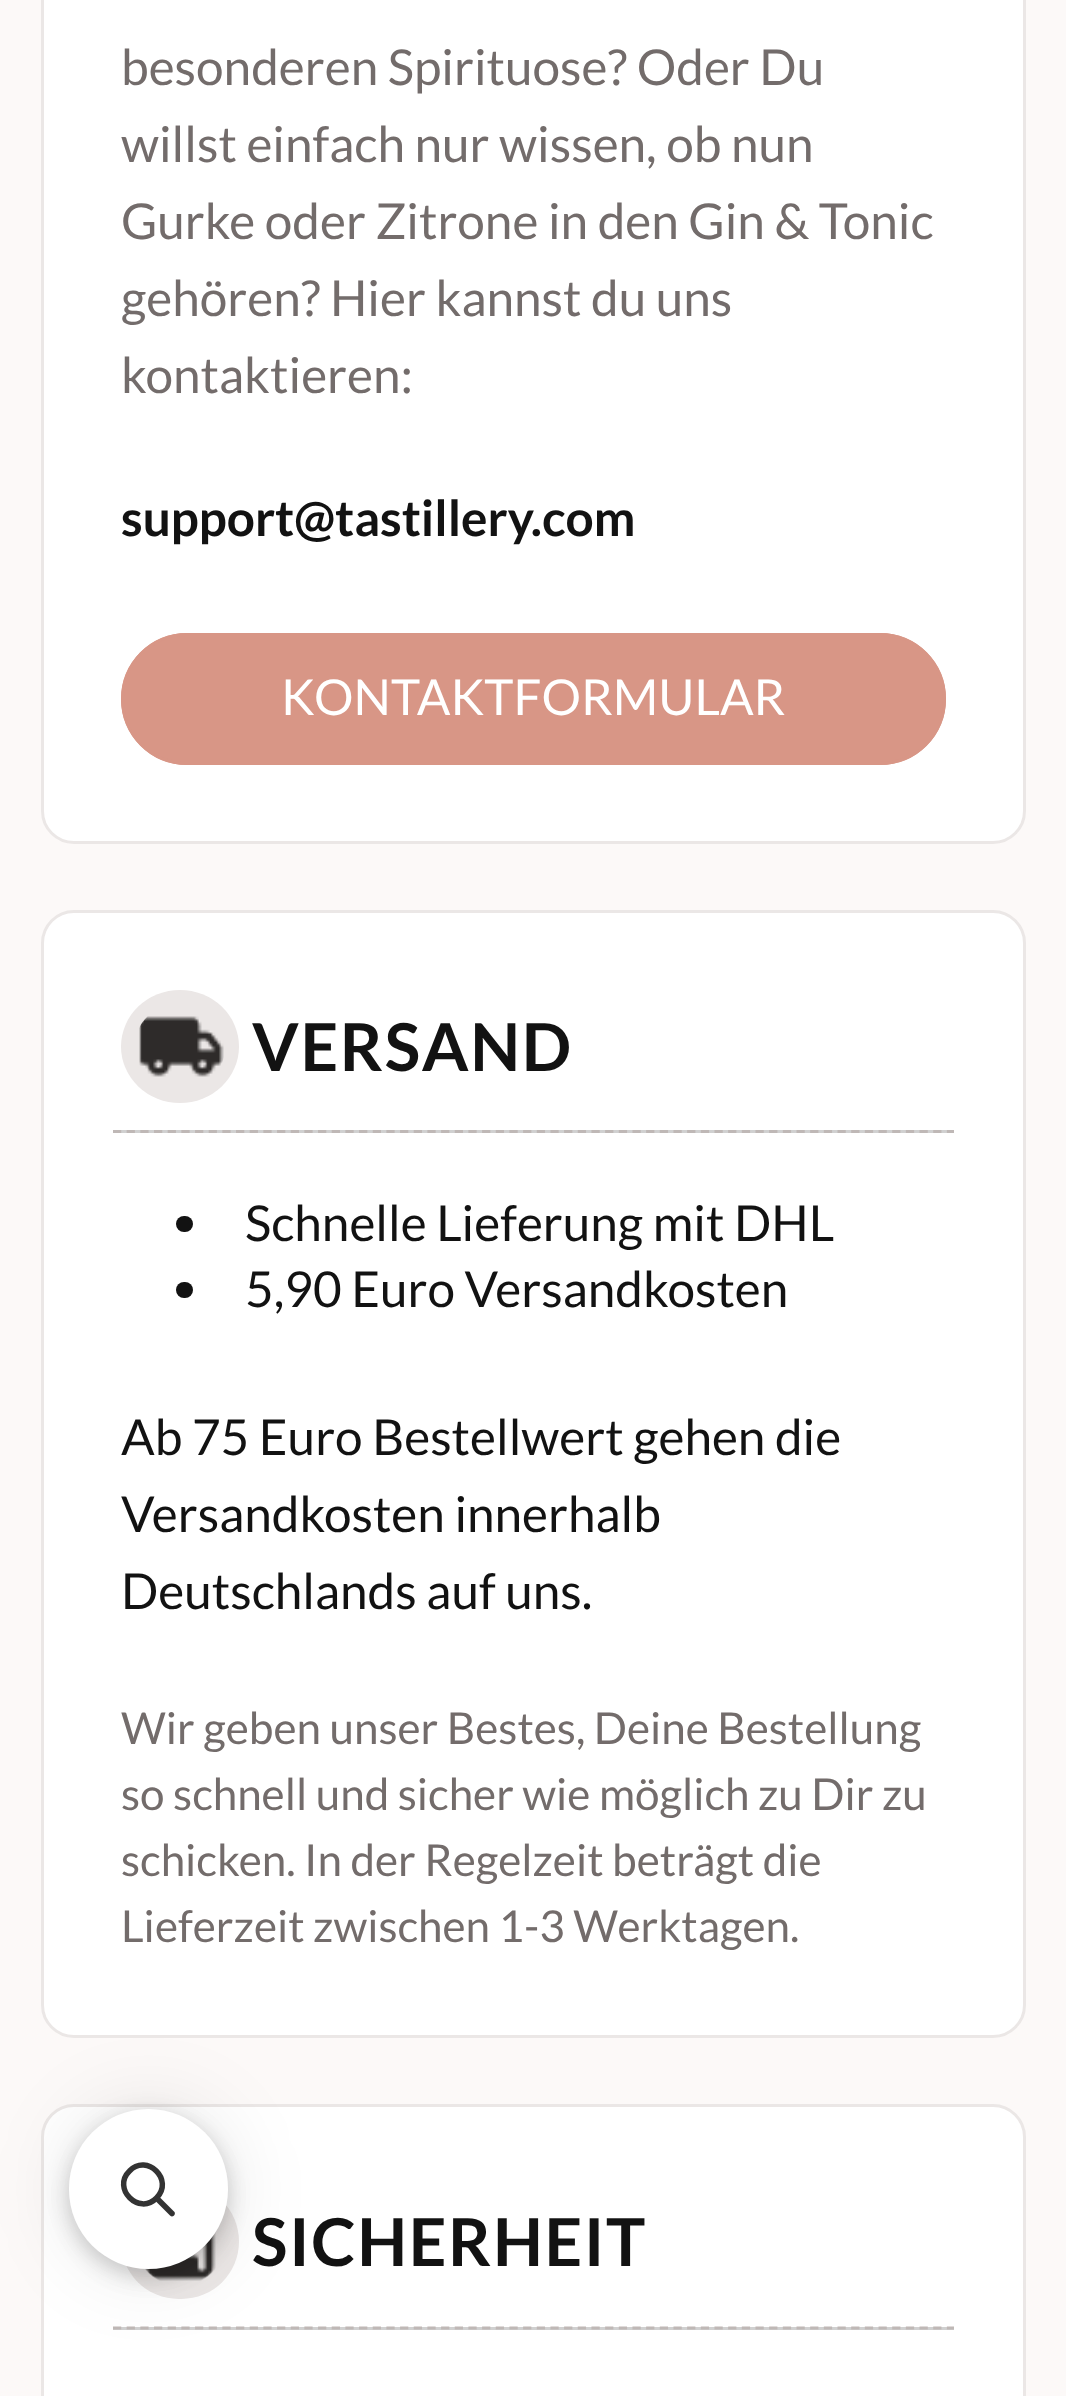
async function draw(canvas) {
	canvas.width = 1066;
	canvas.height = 2396;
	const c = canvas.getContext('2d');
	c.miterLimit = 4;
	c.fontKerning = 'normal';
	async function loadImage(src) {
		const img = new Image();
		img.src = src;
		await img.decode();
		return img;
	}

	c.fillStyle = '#fcf9f8';
	c.fillRect(0, 0, 1066, 2396);
	c.fillStyle = '#fff';
	c.beginPath();
	c.roundRect(42.5, -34.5, 982, 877, 31.5);
	c.fill();
	c.strokeStyle = '#ebe7e6';
	c.lineWidth = 3;
	c.stroke();
	c.font = '49.5px Lato';
	c.fillStyle = '#736c6b';
	for (const [text, x, y] of [
		['besonderen Spirituose? Oder Du', 121, 85],
		['willst einfach nur wissen, ob nun', 121, 162],
		['Gurke oder Zitrone in den Gin & Tonic', 121, 239],
		['gehören? Hier kannst du uns', 121, 316],
		['kontaktieren:', 121, 393],
	]) {
		c.fillText(text, x, y);
	}
	c.font = 'bold 49.5px Lato';
	c.fillStyle = '#121212';
	c.fillText('support@tastillery.com', 121, 536);
	c.fillStyle = '#d89686';
	c.beginPath();
	c.roundRect(121, 633, 825, 132, 66);
	c.fill();
	c.beginPath();
	c.roundRect(122.5, 634.5, 822, 129, 64.5);
	c.strokeStyle = '#d89686';
	c.stroke();
	c.font = '49.5px Lato';
	c.fillStyle = '#fff';
	c.fillText('KONTAKTFORMULAR', 281, 715);
	c.beginPath();
	c.roundRect(42.5, 911.5, 982, 1125, 31.5);
	c.fill();
	c.strokeStyle = '#ebe7e6';
	c.stroke();
	c.fillStyle = '#ebe7e6';
	c.beginPath();
	c.ellipse(180, 1046.5, 59, 56.5, 0, 0, 2 * Math.PI);
	c.fill();
	c.drawImage(await loadImage('img1.png'), 139, 1016, 85, 61);
	c.letterSpacing = '1.6px';
	c.font = 'bold 66px Lato';
	c.fillStyle = '#121212';
	c.fillText('VERSAND', 252, 1071);
	c.fillStyle = '#d0d0d0';
	c.fillRect(113, 1130, 841, 3);
	c.beginPath();
	c.moveTo(113, 1131.5);
	c.lineTo(954, 1131.5);
	c.strokeStyle = '#bfb8b6';
	c.lineWidth = 2.8;
	c.setLineDash([8.25, 5.42]);
	c.stroke();
	c.fillStyle = '#121212';
	c.beginPath();
	c.roundRect(176, 1216, 17, 16, 8);
	c.fill();
	c.letterSpacing = '0px';
	c.font = '49.5px Lato';
	c.fillText('Schnelle Lieferung mit DHL', 245, 1241);
	c.beginPath();
	c.roundRect(176, 1282, 17, 16, 8);
	c.fill();
	for (const [text, x, y] of [
		['5,90 Euro Versandkosten', 245, 1307],
		['Ab 75 Euro Bestellwert gehen die', 121, 1455],
		['Versandkosten innerhalb', 121, 1532],
		['Deutschlands auf uns.', 121, 1609],
	]) {
		c.fillText(text, x, y);
	}
	c.font = '44px Lato';
	c.fillStyle = '#736c6b';
	for (const [text, x, y] of [
		['Wir geben unser Bestes, Deine Bestellung', 121, 1744],
		['so schnell und sicher wie möglich zu Dir zu', 121, 1810],
		['schicken. In der Regelzeit beträgt die', 121, 1876],
		['Lieferzeit zwischen 1-3 Werktagen.', 121, 1942],
	]) {
		c.fillText(text, x, y);
	}
	c.fillStyle = '#fff';
	c.beginPath();
	c.roundRect(42.5, 2105.5, 982, 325, 31.5);
	c.fill();
	c.strokeStyle = '#ebe7e6';
	c.lineWidth = 3;
	c.setLineDash([]);
	c.stroke();
	c.fillStyle = '#ebe7e6';
	c.beginPath();
	c.roundRect(121, 2184, 118, 115, 57.5);
	c.fill();
	c.drawImage(await loadImage('img2.png'), 145, 2231, 71, 50);
	c.letterSpacing = '1.6px';
	c.font = 'bold 66px Lato';
	c.fillStyle = '#121212';
	c.fillText('SICHERHEIT', 252, 2266);
	c.fillStyle = '#d0d0d0';
	c.fillRect(113, 2327, 841, 3);
	c.beginPath();
	c.moveTo(113, 2328);
	c.lineTo(954, 2328);
	c.strokeStyle = '#bfb8b6';
	c.lineWidth = 2.8;
	c.setLineDash([8.25, 5.42]);
	c.stroke();
	c.fillStyle = '#0000000d';
	c.filter = 'blur(11px)';
	c.beginPath();
	c.roundRect(69, 2120, 159, 160, 79.5);
	c.fill();
	c.filter = 'none';
	c.fillStyle = '#00000026';
	c.filter = 'blur(11px)';
	c.beginPath();
	c.roundRect(69, 2115, 159, 159, 79.5);
	c.fill();
	c.filter = 'none';
	c.fillStyle = '#0000001a';
	c.filter = 'blur(41px)';
	c.beginPath();
	c.roundRect(69, 2109, 159, 160, 79.5);
	c.fill();
	c.filter = 'none';
	c.fillStyle = '#fff';
	c.beginPath();
	c.roundRect(69, 2109, 159, 160, 79.5);
	c.fill();
	c.beginPath();
	c.moveTo(129.5, 2171);
	c.bezierCurveTo(147, 2153, 174.5, 2180, 156.5, 2198);
	c.bezierCurveTo(139, 2216, 111.5, 2188.5, 129.5, 2171);
	c.closePath();
	c.strokeStyle = '#333';
	c.lineWidth = 5.5;
	c.setLineDash([]);
	c.stroke();
	c.fillStyle = '#333';
	c.beginPath();
	c.moveTo(154.5, 2200);
	c.lineTo(158.5, 2196);
	c.lineTo(174.5, 2212);
	c.bezierCurveTo(176, 2215, 172.5, 2218, 170, 2215.5);
	c.closePath();
	c.fill();
}

draw(document.querySelector('canvas'));
